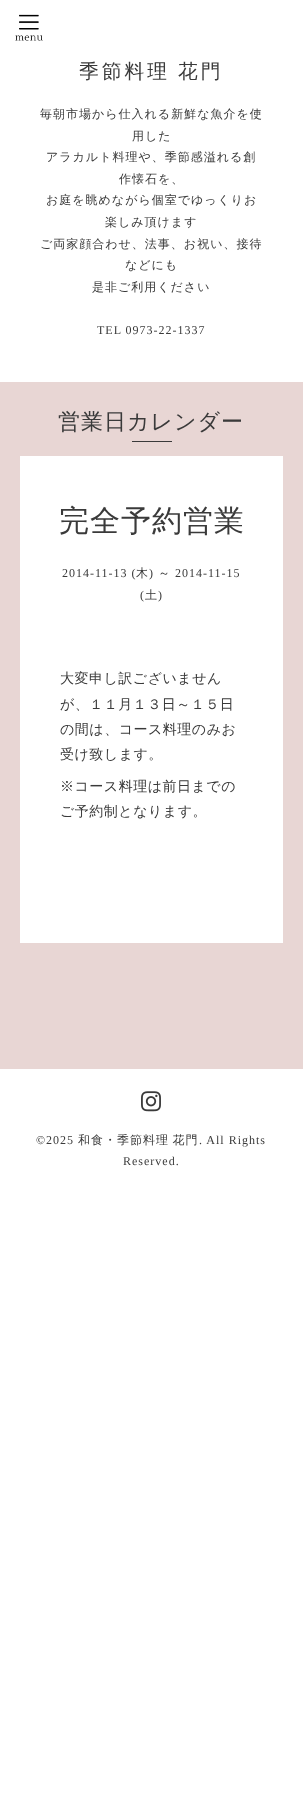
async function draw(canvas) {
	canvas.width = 303;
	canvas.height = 1804;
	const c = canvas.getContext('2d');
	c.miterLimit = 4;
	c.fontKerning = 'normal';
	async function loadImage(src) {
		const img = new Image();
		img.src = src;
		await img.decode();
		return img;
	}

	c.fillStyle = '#fff';
	c.fillRect(0, 0, 303, 1804);
	c.drawImage(await loadImage('img1.png'), 15, 14, 28, 27);
	c.letterSpacing = '3px';
	c.wordSpacing = '-1px';
	c.font = '500 19.75px WenQuanYi Zen Hei';
	c.fillStyle = '#3a3a3a';
	c.fillText('季節料理 花門', 79, 78);
	c.letterSpacing = '1px';
	c.wordSpacing = '0px';
	c.font = '500 12px WenQuanYi Zen Hei';
	for (const [text, x, y] of [
		['毎朝市場から仕入れる新鮮な魚介を使', 40, 118],
		['用した', 132, 140],
		['アラカルト料理や、季節感溢れる創', 46, 161],
		['作懐石を、', 119, 183],
		['お庭を眺めながら個室でゆっくりお', 46, 204],
		['楽しみ頂けます', 105, 226],
		['ご両家顔合わせ、法事、お祝い、接待', 40, 248],
		['などにも', 125, 269],
		['是非ご利用ください', 92, 291],
	]) {
		c.fillText(text, x, y);
	}
	c.font = '12px Liberation Serif';
	c.fillText('TEL 0973-22-1337', 97, 334);
	c.fillStyle = '#e8d6d4';
	c.fillRect(0, 382, 303, 687);
	c.font = '500 22px WenQuanYi Zen Hei';
	c.fillStyle = '#3a3a3a';
	c.fillText('営業日カレンダー', 58, 429);
	c.fillRect(132, 441, 40, 1);
	c.fillStyle = '#fff';
	c.fillRect(20, 456, 263, 487);
	c.font = '500 30px WenQuanYi Zen Hei';
	c.fillStyle = '#3a3a3a';
	c.fillText('完全予約営業', 59, 531);
	c.font = '12px Liberation Serif';
	c.fillText('2014-11-13 (', 62, 577);
	c.font = '500 12px WenQuanYi Zen Hei';
	c.fillText('木', 136, 577);
	c.font = '12px Liberation Serif';
	c.fillText(')', 149, 577);
	c.font = '500 12px WenQuanYi Zen Hei';
	c.fillText('～', 158, 577);
	c.font = '12px Liberation Serif';
	c.fillText('2014-11-15', 175, 577);
	c.fillText('(', 140, 599);
	c.font = '500 12px WenQuanYi Zen Hei';
	c.fillText('土', 145, 599);
	c.font = '12px Liberation Serif';
	c.fillText(')', 158, 599);
	c.letterSpacing = '0.5px';
	c.font = '500 14px WenQuanYi Zen Hei';
	for (const [text, x, y] of [
		['大変申し訳ございません', 60, 683],
		['が、１１月１３日～１５日', 60, 709],
		['の間は、コース料理のみお', 60, 734],
		['受け致します。', 60, 759],
		['※コース料理は前日までの', 60, 791],
		['ご予約制となります。', 60, 816],
	]) {
		c.fillText(text, x, y);
	}
	c.drawImage(await loadImage('img2.png'), 141, 1091, 20, 21);
	c.letterSpacing = '1px';
	c.font = '12px Liberation Serif';
	c.fillText('©2025', 36, 1144);
	c.wordSpacing = '-1px';
	c.font = '500 12px WenQuanYi Zen Hei';
	c.fillText('和食・季節料理 花門', 78, 1144);
	c.wordSpacing = '0px';
	c.font = '12px Liberation Serif';
	c.fillText('. All Rights', 199, 1144);
	c.fillText('Reserved.', 123, 1165);
}

draw(document.querySelector('canvas'));
